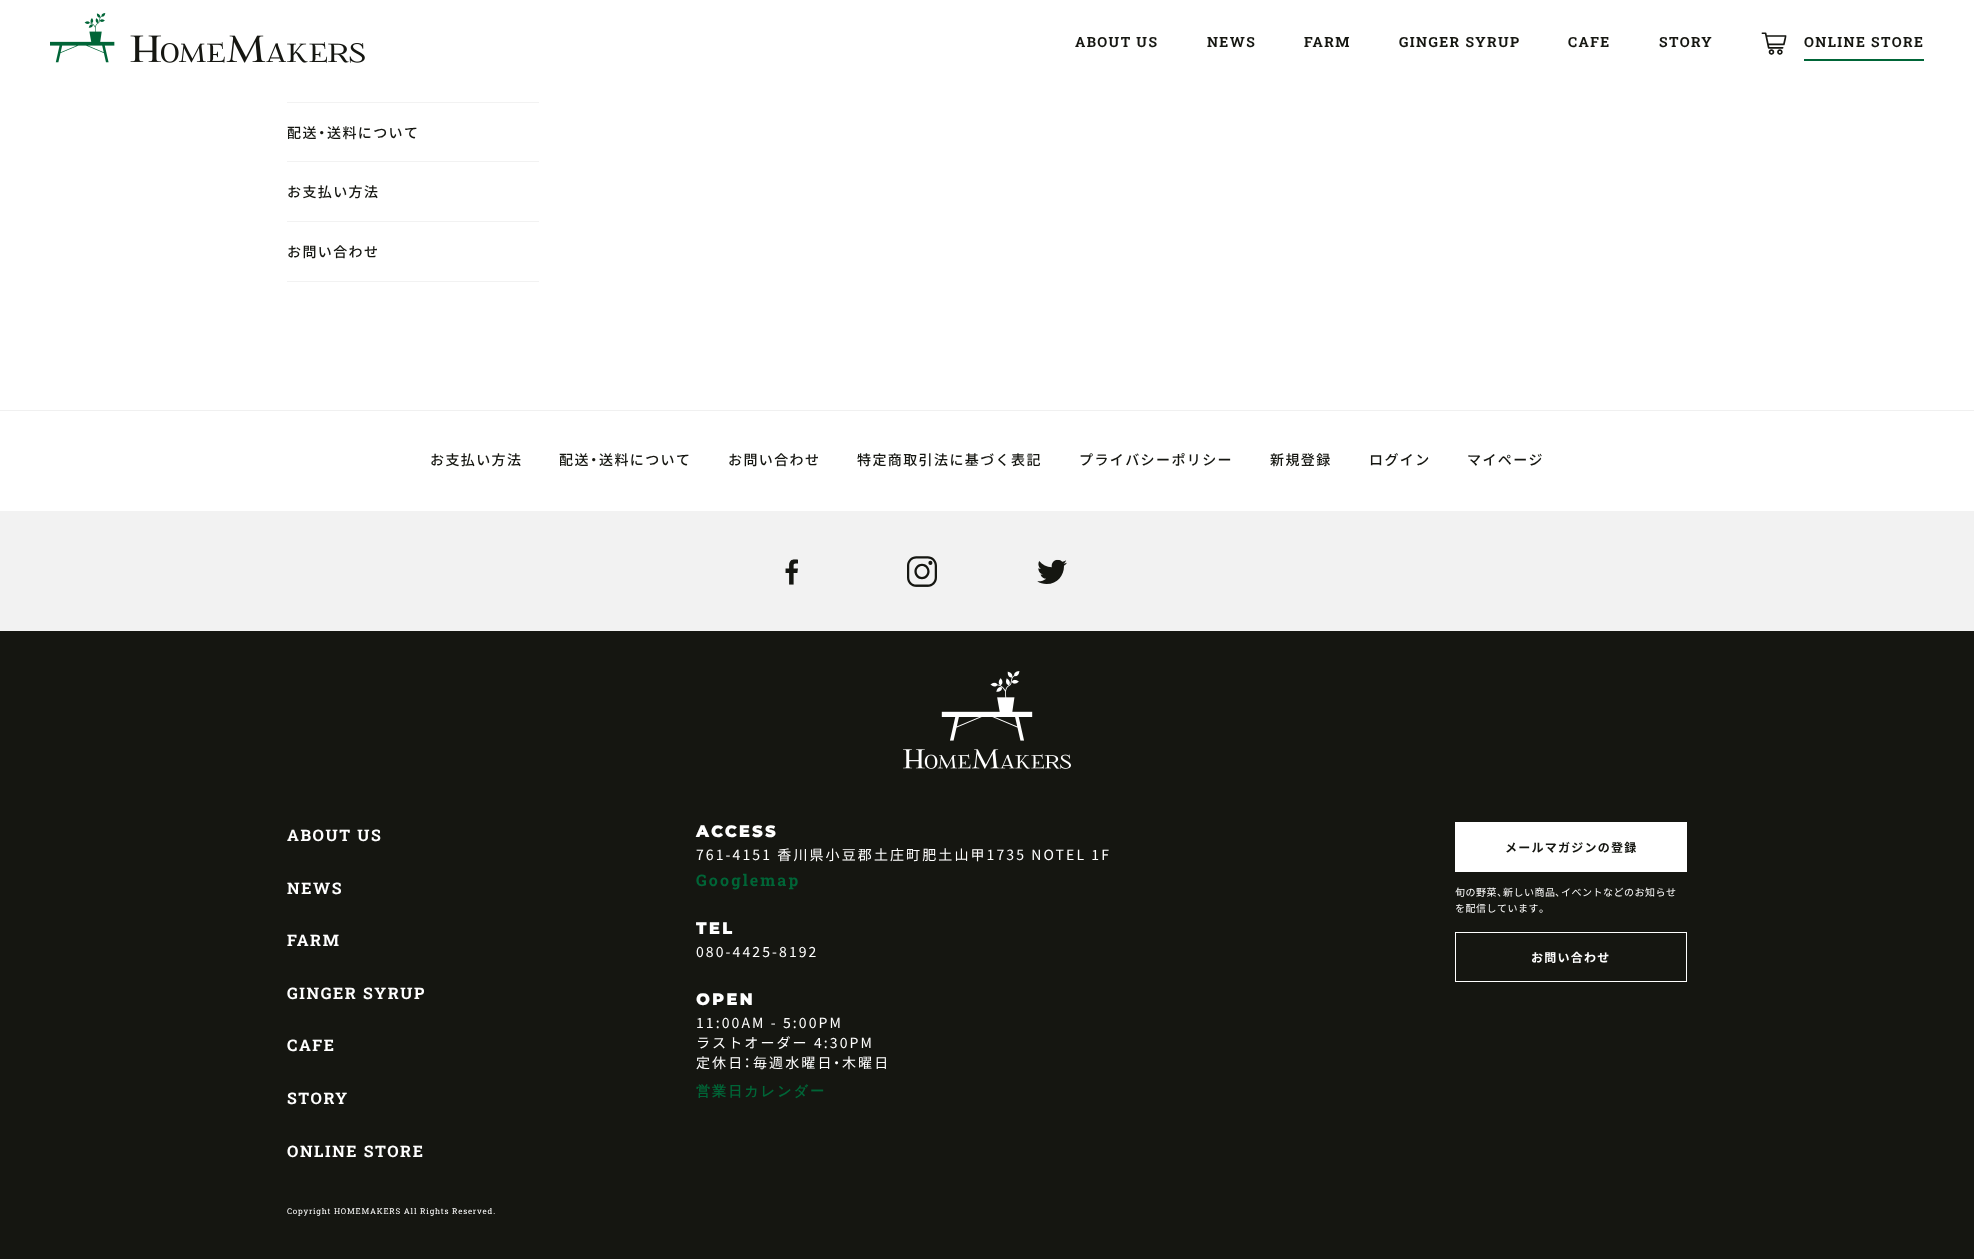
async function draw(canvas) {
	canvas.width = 1974;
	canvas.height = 1259;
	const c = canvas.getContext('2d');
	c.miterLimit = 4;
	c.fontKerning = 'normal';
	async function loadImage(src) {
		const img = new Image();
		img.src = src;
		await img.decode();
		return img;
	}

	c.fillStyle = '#fff';
	c.fillRect(0, 0, 1974, 1259);
	c.drawImage(await loadImage('img1.png'), 50, 13, 315, 50);
	c.letterSpacing = '1.4px';
	c.font = 'bold 14px Roboto Slab';
	c.fillStyle = '#151611';
	for (const [text, x, y] of [
		['ABOUT US', 1075, 47],
		['NEWS', 1207, 47],
		['FARM', 1304, 47],
		['GINGER SYRUP', 1399, 47],
		['CAFE', 1568, 47],
		['STORY', 1659, 47],
	]) {
		c.fillText(text, x, y);
	}
	c.drawImage(await loadImage('img2.png'), 1761, 32, 26, 23);
	c.fillText('ONLINE STORE', 1804, 47);
	for (const [x, y, w, h, color] of [
		[1804, 59, 120, 2, '#006537'],
		[287, 102, 252, 1, '#f2f2f2'],
		[287, 161, 252, 1, '#f2f2f2'],
	]) {
		c.fillStyle = color;
		c.fillRect(x, y, w, h);
	}
	c.font = '500 14px Noto Sans JP';
	c.fillStyle = '#151611';
	c.fillText('配送', 287, 138);
	c.font = '500 14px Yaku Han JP';
	c.fillText('・', 318, 138);
	c.font = '500 14px Noto Sans JP';
	c.fillText('送料について', 327, 138);
	c.fillStyle = '#f2f2f2';
	c.fillRect(287, 221, 252, 1);
	c.fillStyle = '#151611';
	c.fillText('お支払い方法', 287, 197);
	c.fillStyle = '#f2f2f2';
	c.fillRect(287, 281, 252, 1);
	c.fillStyle = '#151611';
	c.fillText('お問い合わせ', 287, 257);
	c.fillStyle = '#f0f0f0';
	c.fillRect(0, 410, 1974, 1);
	c.fillStyle = '#151611';
	c.fillText('お支払い方法', 430, 465);
	c.fillText('配送', 559, 465);
	c.font = '500 14px Yaku Han JP';
	c.fillText('・', 590, 465);
	c.font = '500 14px Noto Sans JP';
	for (const [text, x, y] of [
		['送料について', 599, 465],
		['お問い合わせ', 728, 465],
		['特定商取引法に基づく表記', 857, 465],
		['プライバシーポリシー', 1079, 465],
		['新規登録', 1270, 465],
		['ログイン', 1369, 465],
		['マイページ', 1467, 465],
	]) {
		c.fillText(text, x, y);
	}
	c.fillStyle = '#f2f2f2';
	c.fillRect(0, 511, 1974, 120);
	c.drawImage(await loadImage('img3.png'), 785, 559, 13, 26);
	c.drawImage(await loadImage('img4.png'), 907, 556, 30, 31);
	c.drawImage(await loadImage('img5.png'), 1037, 559, 30, 25);
	c.fillStyle = '#151611';
	c.fillRect(0, 631, 1974, 628);
	c.drawImage(await loadImage('img6.png'), 903, 671, 168, 98);
	c.letterSpacing = '1.6px';
	c.font = 'bold 16px Roboto Slab';
	c.fillStyle = '#fff';
	for (const [text, x, y] of [
		['ABOUT US', 287, 841],
		['NEWS', 287, 894],
		['FARM', 287, 946],
		['GINGER SYRUP', 287, 999],
		['CAFE', 287, 1051],
		['STORY', 287, 1104],
		['ONLINE STORE', 287, 1157],
	]) {
		c.fillText(text, x, y);
	}
	c.letterSpacing = '2.5px';
	c.font = 'bold 16px Montserrat';
	c.fillText('ACCESS', 696, 837);
	c.letterSpacing = '2.1px';
	c.font = '14px Noto Sans JP';
	c.fillText('761-4151 香川県小豆郡土庄町肥土山甲1735 NOTEL 1F', 696, 860);
	c.font = 'bold 16px Roboto Slab';
	c.fillStyle = '#006537';
	c.fillText('Googlemap', 696, 886);
	c.letterSpacing = '2.5px';
	c.font = 'bold 16px Montserrat';
	c.fillStyle = '#fff';
	c.fillText('TEL', 696, 934);
	c.letterSpacing = '2.1px';
	c.font = '14px Noto Sans JP';
	c.fillText('080-4425-8192', 696, 957);
	c.letterSpacing = '2.5px';
	c.font = 'bold 16px Montserrat';
	c.fillText('OPEN', 696, 1005);
	c.letterSpacing = '2.1px';
	c.font = '14px Noto Sans JP';
	for (const [text, x, y] of [
		['11:00AM - 5:00PM', 696, 1028],
		['ラストオーダー 4:30PM', 696, 1048],
		['定休日', 696, 1068],
	]) {
		c.fillText(text, x, y);
	}
	c.font = '14px Yaku Han JP';
	c.fillText('：', 744, 1068);
	c.font = '14px Noto Sans JP';
	c.fillText('毎週水曜日', 753, 1068);
	c.font = '14px Yaku Han JP';
	c.fillText('・', 833, 1068);
	c.font = '14px Noto Sans JP';
	c.fillText('木曜日', 842, 1068);
	c.font = 'bold 14px WenQuanYi Zen Hei';
	c.fillStyle = '#006537';
	c.fillText('営業日カレンダー', 696, 1096);
	c.fillStyle = '#fff';
	c.fillRect(1455, 822, 232, 50);
	c.letterSpacing = '1.25px';
	c.font = 'bold 12px Noto Sans JP';
	c.fillStyle = '#151611';
	c.fillText('メールマガジンの登録', 1505, 852);
	c.letterSpacing = '0.5px';
	c.font = '10px Noto Sans JP';
	c.fillStyle = '#fff';
	c.fillText('旬の野菜', 1455, 896);
	c.font = '10px Yaku Han JP';
	c.fillText('、', 1497, 896);
	c.font = '10px Noto Sans JP';
	c.fillText('新しい商品', 1503, 896);
	c.font = '10px Yaku Han JP';
	c.fillText('、', 1555, 896);
	c.font = '10px Noto Sans JP';
	c.fillText('イベントなどのお知らせ', 1561, 896);
	c.fillText('を配信しています', 1455, 912);
	c.font = '10px Yaku Han JP';
	c.fillText('。', 1539, 912);
	c.strokeStyle = '#fff';
	c.strokeRect(1455.5, 932.5, 231, 49);
	c.letterSpacing = '1.25px';
	c.font = 'bold 12px Noto Sans JP';
	c.fillText('お問い合わせ', 1531, 962);
	c.letterSpacing = '0.8px';
	c.font = '8px Roboto Slab';
	c.fillText('Copyright HOMEMAKERS All Rights Reserved.', 287, 1214);
}

draw(document.querySelector('canvas'));
